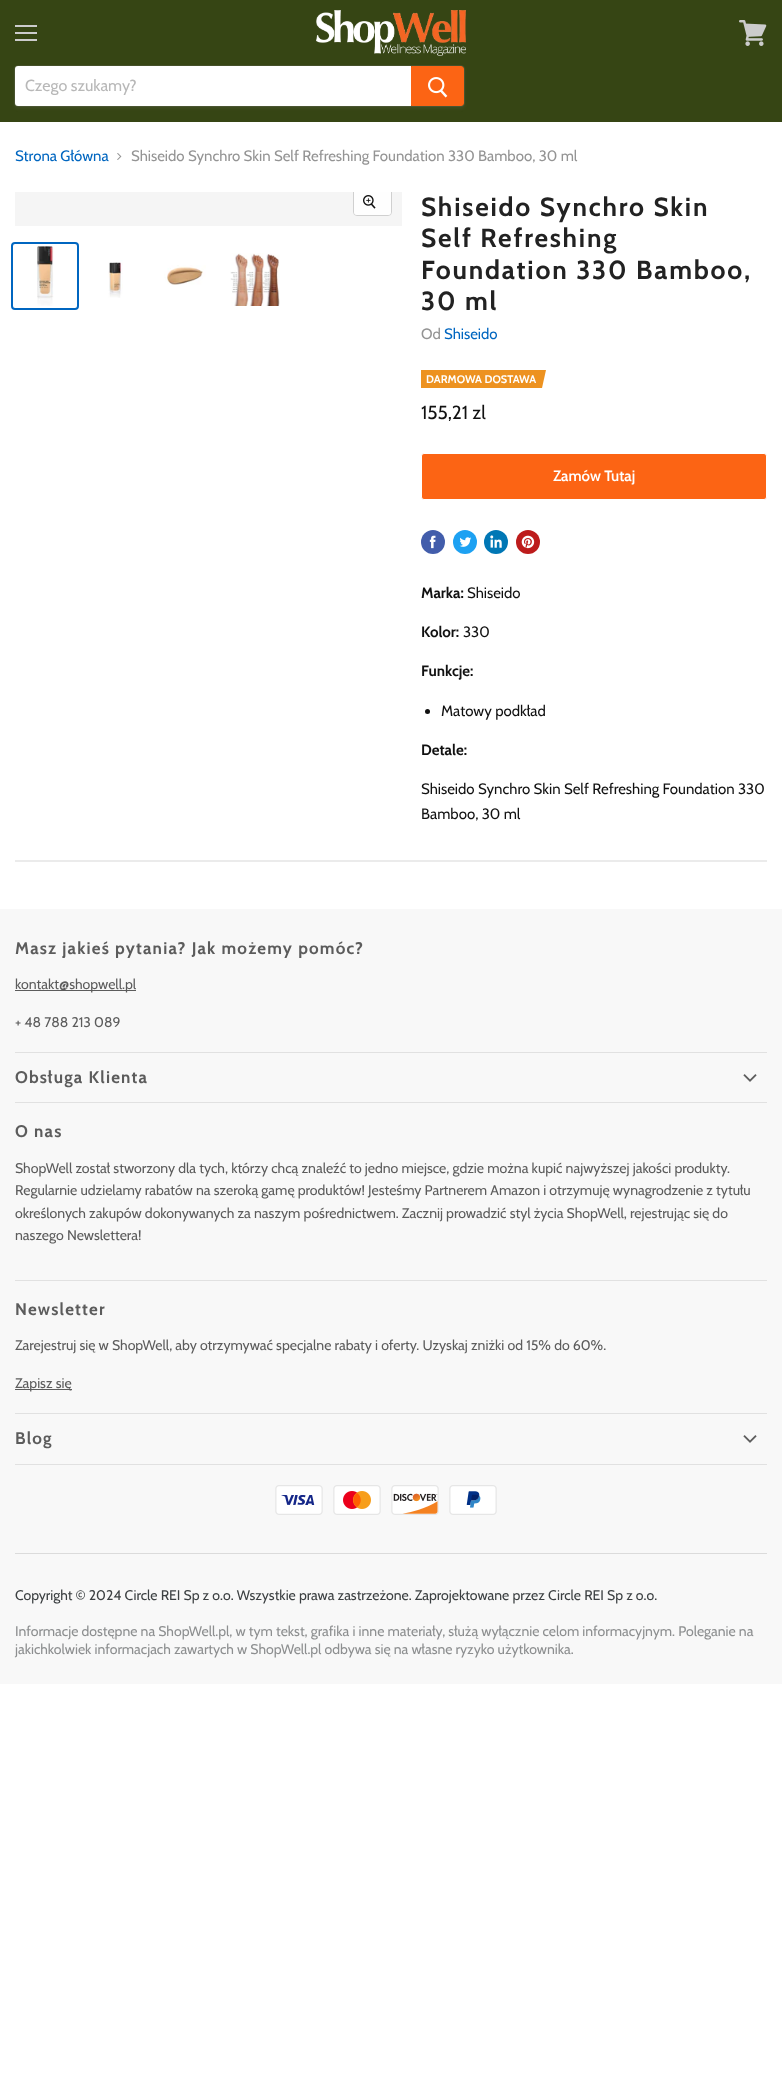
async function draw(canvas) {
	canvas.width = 782;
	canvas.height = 2075;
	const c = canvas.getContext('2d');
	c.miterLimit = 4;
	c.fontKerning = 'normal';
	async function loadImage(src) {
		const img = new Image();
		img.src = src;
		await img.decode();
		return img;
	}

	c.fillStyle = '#fff';
	c.fillRect(0, 0, 782, 2075);
	for (const [x, y, w, h, color] of [
		[0, 0, 782, 122, '#364514'],
		[15, 25, 22, 2, '#ccc'],
		[15, 32, 22, 2, '#ccc'],
		[15, 39, 22, 2, '#ccc'],
	]) {
		c.fillStyle = color;
		c.fillRect(x, y, w, h);
	}
	c.drawImage(await loadImage('img1.png'), 739, 20, 28, 26);
	c.drawImage(await loadImage('img2.png'), 316, 10, 150, 46);
	c.fillStyle = '#7f7f7f1c';
	c.filter = 'blur(1.5px)';
	c.beginPath();
	c.roundRect(14, 67, 451, 42, 4);
	c.fill();
	c.filter = 'none';
	c.beginPath();
	c.roundRect(14.5, 65.5, 450, 41, 3.5);
	c.strokeStyle = '#7f7f7f33';
	c.stroke();
	c.fillStyle = '#fff';
	c.beginPath();
	c.roundRect(15, 66, 396, 40, [3, 0, 0, 3]);
	c.fill();
	c.font = '16px Cabin';
	c.fillStyle = '#b8b8b8';
	c.fillText('Czego szukamy?', 25, 91);
	c.fillStyle = '#fc6414';
	c.beginPath();
	c.roundRect(411.5, 66.5, 52, 39, [0, 2.5, 2.5, 0]);
	c.fill();
	c.strokeStyle = '#fc6414';
	c.stroke();
	c.drawImage(await loadImage('img3.png'), 428, 77, 20, 21);
	c.font = '15px Cabin';
	c.fillStyle = '#0066c0';
	c.fillText('Strona Główna', 15, 161);
	c.drawImage(await loadImage('img4.png'), 117, 153, 5, 7);
	c.fillStyle = '#949494';
	c.fillText('Shiseido Synchro Skin Self Refreshing Foundation 330 Bamboo, 30 ml', 131, 161);
	c.fillStyle = '#f5f5f5';
	c.fillRect(15, 192, 387, 34);
	c.save();
	c.beginPath();
	c.rect(15, 192, 387, 34);
	c.clip();
	c.beginPath();
	c.roundRect(353.5, 188.5, 38, 27, 3.5);
	c.strokeStyle = '#d0d0d0';
	c.stroke();
	c.restore();
	c.fillStyle = '#ffffffe6';
	c.beginPath();
	c.roundRect(354, 192, 37, 23, [0, 0, 3, 3]);
	c.fill();
	c.drawImage(await loadImage('img5.png'), 363, 195, 13, 14);
	c.beginPath();
	c.roundRect(12, 243, 66, 66, 3);
	c.strokeStyle = '#0066c0';
	c.lineWidth = 2;
	c.stroke();
	c.drawImage(await loadImage('img6.png'), 37, 246, 17, 60);
	c.drawImage(await loadImage('img7.png'), 108, 260, 15, 38);
	c.drawImage(await loadImage('img8.png'), 164, 265, 42, 20);
	c.drawImage(await loadImage('img9.png'), 230, 253, 50, 53);
	c.letterSpacing = '1.8px';
	c.font = 'bold 26.25px Cabin';
	c.fillStyle = '#222';
	for (const [text, x, y] of [
		['Shiseido Synchro Skin', 421, 216],
		['Self Refreshing', 421, 247],
		['Foundation 330 Bamboo,', 421, 279],
		['30 ml', 421, 310],
	]) {
		c.fillText(text, x, y);
	}
	c.letterSpacing = '0px';
	c.font = '15px Cabin';
	c.fillStyle = '#949494';
	c.fillText('Od', 421, 339);
	c.fillStyle = '#0066c0';
	c.fillText('Shiseido', 444, 339);
	c.fillStyle = '#ed9220';
	c.fillRect(421, 370, 121, 18);
	c.font = 'bold 11px Cabin';
	c.fillStyle = '#fff';
	c.fillText('DARMOWA DOSTAWA', 426, 383);
	c.fillStyle = '#ed9220';
	c.beginPath();
	c.moveTo(542, 370);
	c.lineTo(546, 370);
	c.lineTo(542, 388);
	c.closePath();
	c.fill();
	c.font = '19px Cabin';
	c.fillStyle = '#111';
	c.fillText('155,21 zl', 421, 419);
	c.fillStyle = '#fc6414';
	c.beginPath();
	c.roundRect(421.5, 453.5, 345, 46, 2.5);
	c.fill();
	c.strokeStyle = '#fff';
	c.lineWidth = 1;
	c.stroke();
	c.font = '600 15px Cabin';
	c.fillStyle = '#fff';
	c.fillText('Zamów Tutaj', 553, 481);
	c.fillStyle = '#425dab';
	c.beginPath();
	c.arc(433, 542, 12, 0, 2 * Math.PI);
	c.fill();
	c.drawImage(await loadImage('img10.png'), 429, 535, 7, 14);
	c.fillStyle = '#1da1f2';
	c.beginPath();
	c.arc(465, 542, 12, 0, 2 * Math.PI);
	c.fill();
	c.drawImage(await loadImage('img11.png'), 459, 537, 13, 10);
	c.fillStyle = '#0077b5';
	c.beginPath();
	c.arc(496, 542, 12, 0, 2 * Math.PI);
	c.fill();
	c.drawImage(await loadImage('img12.png'), 490, 535, 12, 13);
	c.fillStyle = '#bd1c1c';
	c.beginPath();
	c.arc(528, 542, 12, 0, 2 * Math.PI);
	c.fill();
	c.drawImage(await loadImage('img13.png'), 521, 535, 14, 14);
	c.font = 'bold 15px Cabin';
	c.fillStyle = '#111';
	c.fillText('Marka:', 421, 598);
	c.font = '15px Cabin';
	c.fillText('Shiseido', 467, 598);
	c.font = 'bold 15px Cabin';
	c.fillText('Kolor:', 421, 637);
	c.font = '15px Cabin';
	c.fillText('330', 463, 637);
	c.font = 'bold 15px Cabin';
	c.fillText('Funkcje:', 421, 676);
	c.beginPath();
	c.arc(427.5, 711.5, 2.5, 0, 2 * Math.PI);
	c.fill();
	c.font = '15px Cabin';
	c.fillText('Matowy podkład', 441, 716);
	c.font = 'bold 15px Cabin';
	c.fillText('Detale:', 421, 755);
	c.font = '15px Cabin';
	c.fillText('Shiseido Synchro Skin Self Refreshing Foundation 330', 421, 794);
	c.fillText('Bamboo, 30 ml', 421, 819);
	for (const [x, y, w, h, color] of [
		[15, 860, 752, 2, '#ebebeb'],
		[0, 909, 782, 775, '#f8f8f8'],
		[15, 1052, 752, 1, '#e1e1e1'],
	]) {
		c.fillStyle = color;
		c.fillRect(x, y, w, h);
	}
	c.letterSpacing = '1.2px';
	c.font = 'bold 16.9px Cabin';
	c.fillStyle = '#5c5c5c';
	c.fillText('Masz jakieś pytania? Jak możemy pomóc?', 15, 954);
	c.fillRect(15, 990, 121, 1);
	c.letterSpacing = '0px';
	c.font = '14.05px Cabin';
	c.fillText('kontakt@shopwell.pl', 15, 989);
	c.fillText('+ 48 788 213 089', 15, 1027);
	c.fillStyle = '#e1e1e1';
	c.fillRect(15, 1102, 752, 1);
	c.letterSpacing = '1.2px';
	c.font = 'bold 16.9px Cabin';
	c.fillStyle = '#5c5c5c';
	c.fillText('Obsługa Klienta', 15, 1083);
	c.drawImage(await loadImage('img14.png'), 743, 1074, 14, 8);
	c.fillStyle = '#e1e1e1';
	c.fillRect(15, 1280, 752, 1);
	c.fillStyle = '#5c5c5c';
	c.fillText('O nas', 15, 1137);
	c.letterSpacing = '0px';
	c.font = '14.05px Cabin';
	for (const [text, x, y] of [
		['ShopWell został stworzony dla tych, którzy chcą znaleźć to jedno miejsce, gdzie można kupić najwyższej jakości produkty.', 15, 1173],
		['Regularnie udzielamy rabatów na szeroką gamę produktów! Jesteśmy Partnerem Amazon i otrzymuję wynagrodzenie z tytułu', 15, 1195],
		['określonych zakupów dokonywanych za naszym pośrednictwem. Zacznij prowadzić styl życia ShopWell, rejestrując się do', 15, 1218],
		['naszego Newslettera!', 15, 1240],
	]) {
		c.fillText(text, x, y);
	}
	c.fillStyle = '#e1e1e1';
	c.fillRect(15, 1413, 752, 1);
	c.letterSpacing = '1.2px';
	c.font = 'bold 16.9px Cabin';
	c.fillStyle = '#5c5c5c';
	c.fillText('Newsletter', 15, 1315);
	c.letterSpacing = '0px';
	c.font = '14.05px Cabin';
	c.fillText('Zarejestruj się w ShopWell, aby otrzymywać specjalne rabaty i oferty. Uzyskaj zniżki od 15% do 60%.', 15, 1350);
	c.fillRect(15, 1389, 57, 1);
	c.fillText('Zapisz się', 15, 1388);
	c.fillStyle = '#e1e1e1';
	c.fillRect(15, 1464, 752, 1);
	c.letterSpacing = '1.2px';
	c.font = 'bold 16.9px Cabin';
	c.fillStyle = '#5c5c5c';
	c.fillText('Blog', 15, 1444);
	c.drawImage(await loadImage('img14.png'), 743, 1435, 14, 8);
	c.drawImage(await loadImage('img15.png'), 275, 1485, 48, 30);
	c.drawImage(await loadImage('img16.png'), 333, 1485, 48, 30);
	c.drawImage(await loadImage('img17.png'), 391, 1485, 48, 30);
	c.drawImage(await loadImage('img18.png'), 449, 1485, 48, 30);
	c.fillStyle = '#dbdbdb';
	c.fillRect(15, 1553, 752, 1);
	c.letterSpacing = '0px';
	c.font = '14px Cabin';
	c.fillStyle = '#3c4042';
	c.fillText('Copyright © 2024 Circle REI Sp z o.o. Wszystkie prawa zastrzeżone. Zaprojektowane przez Circle REI Sp z o.o.', 15, 1600);
	c.fillStyle = '#8d8f90';
	c.fillText('Informacje dostępne na ShopWell.pl, w tym tekst, grafika i inne materiały, służą wyłącznie celom informacyjnym. Poleganie na', 15, 1636);
	c.fillText('jakichkolwiek informacjach zawartych w ShopWell.pl odbywa się na własne ryzyko użytkownika.', 15, 1654);
}

draw(document.querySelector('canvas'));
